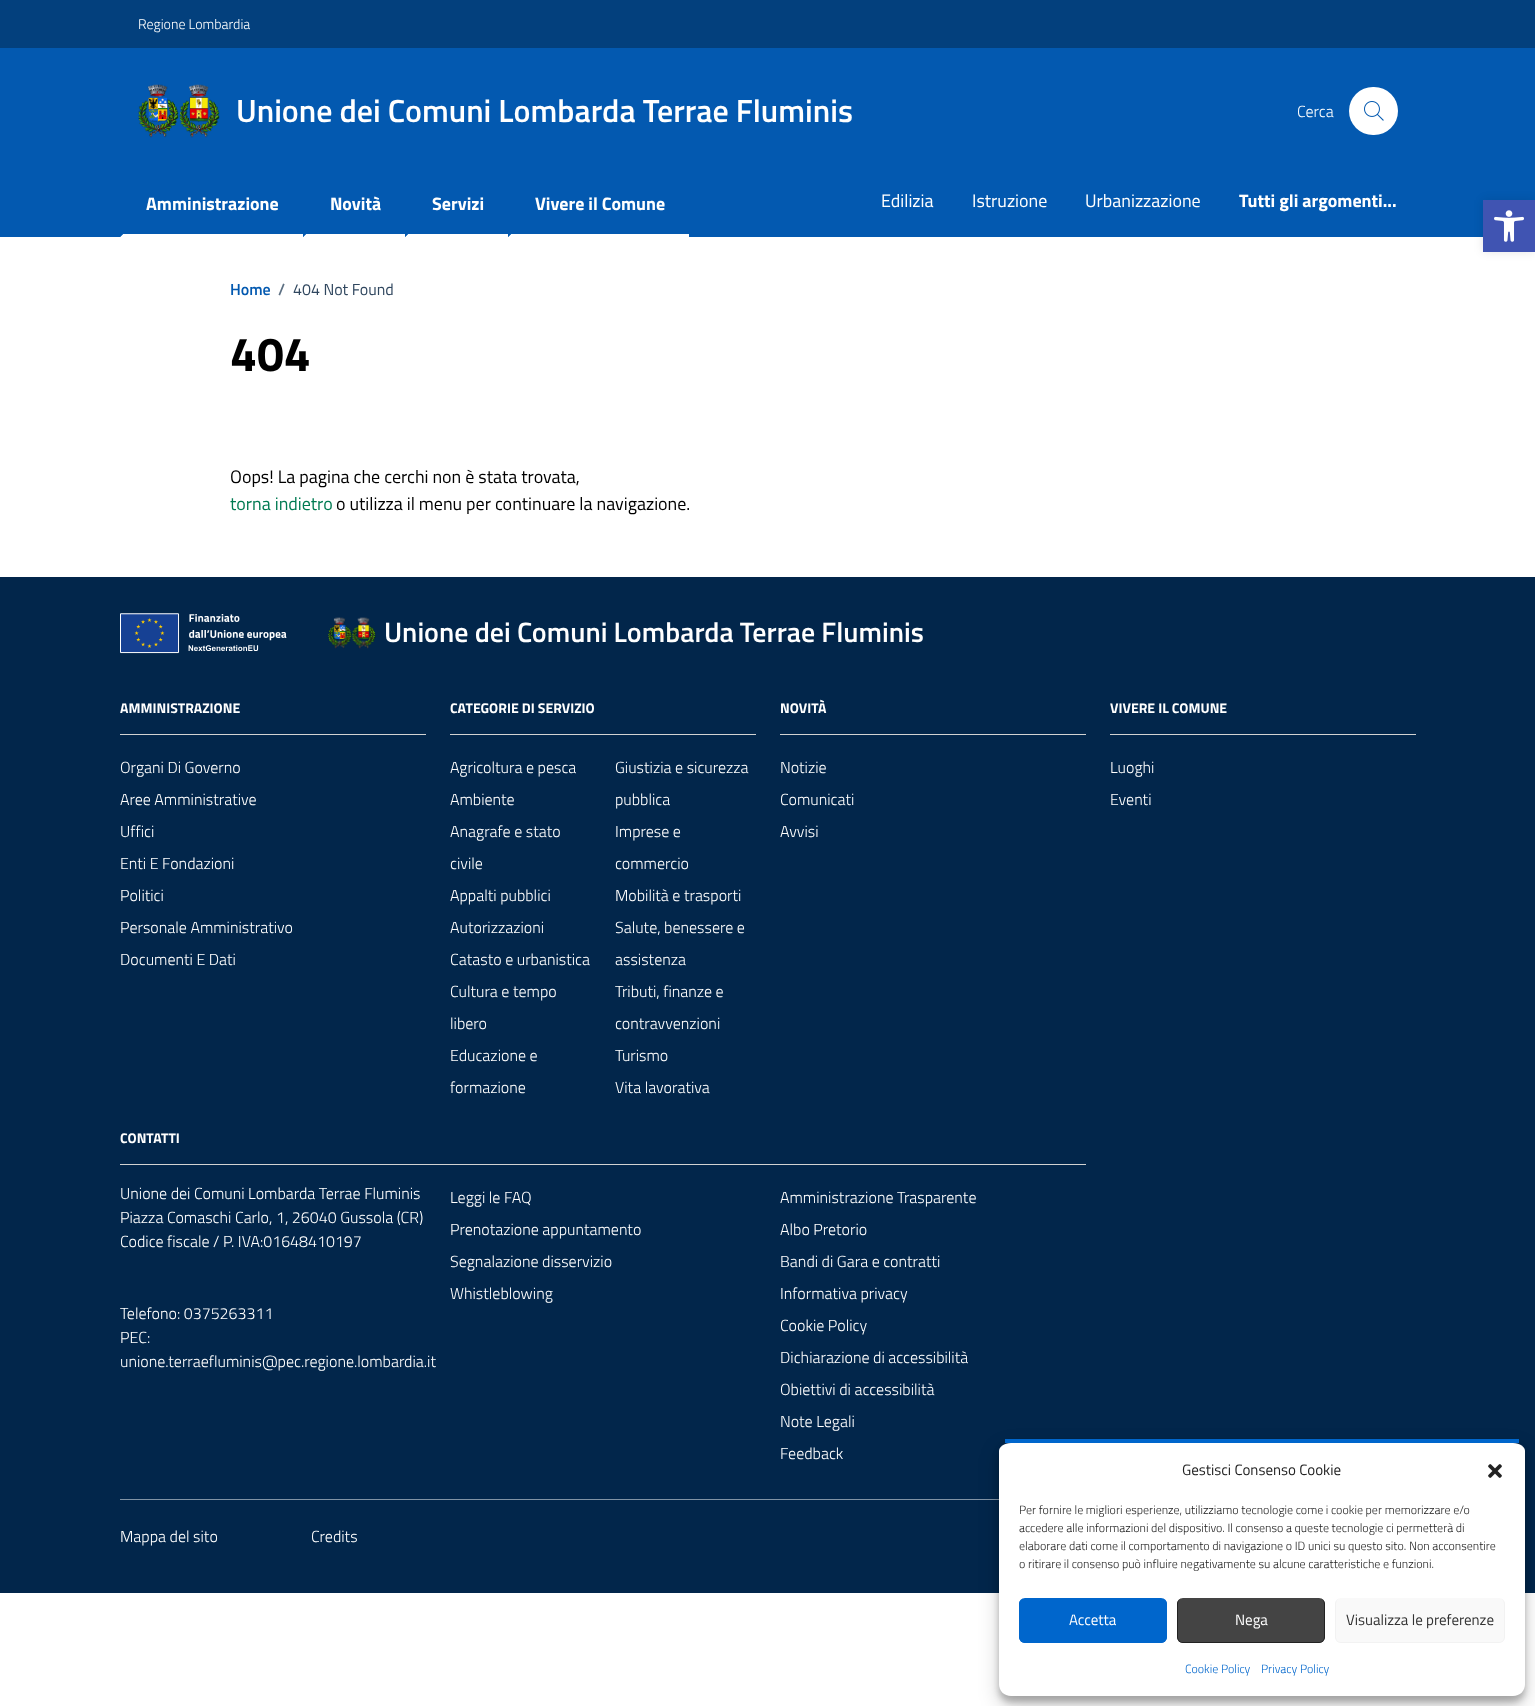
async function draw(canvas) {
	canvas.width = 1535;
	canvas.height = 1706;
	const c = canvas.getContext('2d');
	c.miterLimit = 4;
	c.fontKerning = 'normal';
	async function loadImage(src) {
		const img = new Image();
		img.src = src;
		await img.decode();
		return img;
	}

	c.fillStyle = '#fff';
	c.fillRect(0, 0, 1535, 1706);
	c.fillStyle = '#03407d';
	c.fillRect(0, 0, 1535, 48);
	c.font = '300 14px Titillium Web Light';
	c.fillStyle = '#fff';
	c.fillText('Regione Lombardia', 138, 29);
	c.fillStyle = '#0359b0';
	c.fillRect(0, 48, 1535, 189);
	c.drawImage(await loadImage('img1.png'), 138, 84, 82, 54);
	c.font = '600 32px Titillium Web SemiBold';
	c.fillStyle = '#fff';
	c.fillText('Unione dei Comuni Lombarda Terrae Fluminis', 236, 122);
	c.font = '300 16px Titillium Web Light';
	c.fillText('Cerca', 1297, 117);
	c.beginPath();
	c.roundRect(1349, 87, 49, 48, 24);
	c.fill();
	c.drawImage(await loadImage('img2.png'), 1364, 101, 20, 20);
	c.beginPath();
	c.moveTo(303, 237);
	c.lineTo(120, 237);
	c.lineTo(123, 234);
	c.lineTo(303, 234);
	c.closePath();
	c.fill();
	c.fillStyle = '#0359b0';
	c.beginPath();
	c.moveTo(120, 237);
	c.lineTo(120, 174);
	c.lineTo(123, 174);
	c.lineTo(123, 234);
	c.closePath();
	c.fill();
	c.font = 'bold 18px Titillium Web';
	c.fillStyle = '#fff';
	c.fillText('Amministrazione', 146, 210);
	c.beginPath();
	c.moveTo(405, 237);
	c.lineTo(303, 237);
	c.lineTo(306, 234);
	c.lineTo(405, 234);
	c.closePath();
	c.fill();
	c.fillStyle = '#0359b0';
	c.beginPath();
	c.moveTo(303, 237);
	c.lineTo(303, 174);
	c.lineTo(306, 174);
	c.lineTo(306, 234);
	c.closePath();
	c.fill();
	c.fillStyle = '#fff';
	c.fillText('Novità', 330, 210);
	c.beginPath();
	c.moveTo(508, 237);
	c.lineTo(405, 237);
	c.lineTo(408, 234);
	c.lineTo(508, 234);
	c.closePath();
	c.fill();
	c.fillStyle = '#0359b0';
	c.beginPath();
	c.moveTo(405, 237);
	c.lineTo(405, 174);
	c.lineTo(408, 174);
	c.lineTo(408, 234);
	c.closePath();
	c.fill();
	c.fillStyle = '#fff';
	c.fillText('Servizi', 432, 210);
	c.beginPath();
	c.moveTo(689, 237);
	c.lineTo(508, 237);
	c.lineTo(511, 234);
	c.lineTo(689, 234);
	c.closePath();
	c.fill();
	c.fillStyle = '#0359b0';
	c.beginPath();
	c.moveTo(508, 237);
	c.lineTo(508, 174);
	c.lineTo(511, 174);
	c.lineTo(511, 234);
	c.closePath();
	c.fill();
	c.fillStyle = '#fff';
	c.fillText('Vivere il Comune', 535, 210);
	c.font = '18px Titillium Web';
	for (const [text, x, y] of [
		['Edilizia', 881, 207],
		['Istruzione', 972, 207],
		['Urbanizzazione', 1085, 207],
	]) {
		c.fillText(text, x, y);
	}
	c.font = 'bold 18px Titillium Web';
	c.fillText('Tutti gli argomenti...', 1239, 207);
	c.fillStyle = '#0000001a';
	c.filter = 'blur(5px)';
	c.beginPath();
	c.rect(1483, 200, 52, 52);
	c.fill();
	c.filter = 'none';
	c.fillStyle = '#4054b2';
	c.fillRect(1483, 200, 52, 52);
	c.drawImage(await loadImage('img3.png'), 1494, 210, 30, 32);
	c.font = '600 16px Titillium Web SemiBold';
	c.fillStyle = '#0359b0';
	c.fillText('Home', 230, 295);
	c.fillStyle = '#5d7083';
	c.fillText('/', 278, 295);
	c.font = '16px Titillium Web';
	c.fillStyle = '#30475f';
	c.fillText('404 Not Found', 293, 295);
	c.font = 'bold 48px Titillium Web';
	c.fillStyle = '#000';
	c.fillText('404', 230, 371);
	c.font = '18px Titillium Web';
	c.fillText('Oops! La pagina che cerchi non è stata trovata,', 230, 483);
	c.fillStyle = '#007a52';
	c.fillText('torna indietro', 230, 510);
	c.fillStyle = '#000';
	c.fillText('o utilizza il menu per continuare la navigazione.', 336, 510);
	c.fillStyle = '#02264b';
	c.fillRect(0, 577, 1535, 1016);
	c.drawImage(await loadImage('img4.png'), 120, 613, 167, 41);
	c.drawImage(await loadImage('img5.png'), 328, 617, 48, 32);
	c.font = '600 28px Titillium Web SemiBold';
	c.fillStyle = '#fff';
	c.fillText('Unione dei Comuni Lombarda Terrae Fluminis', 384, 642);
	c.fillStyle = '#d2d2d2';
	c.fillRect(120, 734, 306, 1);
	c.font = 'bold 14px Titillium Web';
	c.fillStyle = '#fff';
	c.fillText('AMMINISTRAZIONE', 120, 713);
	c.font = '300 16px Titillium Web Light';
	for (const [text, x, y] of [
		['Organi Di Governo', 120, 773],
		['Aree Amministrative', 120, 805],
		['Uffici', 120, 837],
		['Enti E Fondazioni', 120, 869],
		['Politici', 120, 901],
		['Personale Amministrativo', 120, 933],
		['Documenti E Dati', 120, 965],
	]) {
		c.fillText(text, x, y);
	}
	c.fillStyle = '#d2d2d2';
	c.fillRect(450, 734, 306, 1);
	c.font = 'bold 14px Titillium Web';
	c.fillStyle = '#fff';
	c.fillText('CATEGORIE DI SERVIZIO', 450, 713);
	c.font = '300 16px Titillium Web Light';
	for (const [text, x, y] of [
		['Agricoltura e pesca', 450, 773],
		['Ambiente', 450, 805],
		['Anagrafe e stato', 450, 837],
		['civile', 450, 869],
		['Appalti pubblici', 450, 901],
		['Autorizzazioni', 450, 933],
		['Catasto e urbanistica', 450, 965],
		['Cultura e tempo', 450, 997],
		['libero', 450, 1029],
		['Educazione e', 450, 1061],
		['formazione', 450, 1093],
		['Giustizia e sicurezza', 615, 773],
		['pubblica', 615, 805],
		['Imprese e', 615, 837],
		['commercio', 615, 869],
		['Mobilità e trasporti', 615, 901],
		['Salute, benessere e', 615, 933],
		['assistenza', 615, 965],
		['Tributi, finanze e', 615, 997],
		['contravvenzioni', 615, 1029],
		['Turismo', 615, 1061],
		['Vita lavorativa', 615, 1093],
	]) {
		c.fillText(text, x, y);
	}
	c.fillStyle = '#d2d2d2';
	c.fillRect(780, 734, 306, 1);
	c.font = 'bold 14px Titillium Web';
	c.fillStyle = '#fff';
	c.fillText('NOVITÀ', 780, 713);
	c.font = '300 16px Titillium Web Light';
	for (const [text, x, y] of [
		['Notizie', 780, 773],
		['Comunicati', 780, 805],
		['Avvisi', 780, 837],
	]) {
		c.fillText(text, x, y);
	}
	c.fillStyle = '#d2d2d2';
	c.fillRect(1110, 734, 306, 1);
	c.font = 'bold 14px Titillium Web';
	c.fillStyle = '#fff';
	c.fillText('VIVERE IL COMUNE', 1110, 713);
	c.font = '300 16px Titillium Web Light';
	c.fillText('Luoghi', 1110, 773);
	c.fillText('Eventi', 1110, 805);
	c.fillStyle = '#d2d2d2';
	c.fillRect(120, 1164, 966, 1);
	c.font = 'bold 14px Titillium Web';
	c.fillStyle = '#fff';
	c.fillText('CONTATTI', 120, 1143);
	c.font = '300 16px Titillium Web Light';
	for (const [text, x, y] of [
		['Unione dei Comuni Lombarda Terrae Fluminis', 120, 1199],
		['Piazza Comaschi Carlo, 1, 26040 Gussola (CR)', 120, 1223],
		['Codice fiscale / P. IVA:01648410197', 120, 1247],
		['Telefono: 0375263311', 120, 1319],
		['PEC:', 120, 1343],
		['unione.terraefluminis@pec.regione.lombardia.it', 120, 1367],
		['Leggi le FAQ', 450, 1203],
		['Prenotazione appuntamento', 450, 1235],
		['Segnalazione disservizio', 450, 1267],
		['Whistleblowing', 450, 1299],
		['Amministrazione Trasparente', 780, 1203],
		['Albo Pretorio', 780, 1235],
		['Bandi di Gara e contratti', 780, 1267],
		['Informativa privacy', 780, 1299],
		['Cookie Policy', 780, 1331],
		['Dichiarazione di accessibilità', 780, 1363],
		['Obiettivi di accessibilità', 780, 1395],
		['Note Legali', 780, 1427],
		['Feedback', 780, 1459],
	]) {
		c.fillText(text, x, y);
	}
	c.fillStyle = '#8193a5';
	c.fillRect(120, 1499, 879, 1);
	c.fillStyle = '#fff';
	c.fillText('Mappa del sito', 120, 1542);
	c.fillText('Credits', 311, 1542);
	c.fillStyle = '#0000003b';
	c.filter = 'blur(3px)';
	c.beginPath();
	c.roundRect(999, 1445, 526, 257, 12);
	c.fill();
	c.filter = 'none';
	c.fillStyle = '#00000030';
	c.filter = 'blur(10px)';
	c.beginPath();
	c.roundRect(999, 1449, 526, 257, 12);
	c.fill();
	c.filter = 'none';
	c.fillStyle = '#fff';
	c.beginPath();
	c.moveTo(1011, 1443);
	c.lineTo(1513, 1443);
	c.bezierCurveTo(1520, 1443, 1525, 1447, 1525, 1451);
	c.lineTo(1525, 1684);
	c.bezierCurveTo(1525, 1691, 1520, 1696, 1513, 1696);
	c.lineTo(1011, 1696);
	c.bezierCurveTo(1004, 1696, 999, 1691, 999, 1684);
	c.lineTo(999, 1451);
	c.bezierCurveTo(999, 1447, 1004, 1443, 1011, 1443);
	c.closePath();
	c.fill();
	c.fillStyle = '#06c';
	c.fillRect(1005, 1439, 514, 4);
	c.font = '15px Titillium Web';
	c.fillStyle = '#222';
	c.fillText('Gestisci Consenso Cookie', 1182, 1475);
	c.drawImage(await loadImage('img6.png'), 1488, 1464, 14, 14);
	c.font = '300 12px Titillium Web Light';
	for (const [text, x, y] of [
		['Per fornire le migliori esperienze, utilizziamo tecnologie come i cookie per memorizzare e/o', 1019, 1514],
		['accedere alle informazioni del dispositivo. Il consenso a queste tecnologie ci permetterà di', 1019, 1532],
		['elaborare dati come il comportamento di navigazione o ID unici su questo sito. Non acconsentire', 1019, 1550],
		['o ritirare il consenso può influire negativamente su alcune caratteristiche e funzioni.', 1019, 1568],
	]) {
		c.fillText(text, x, y);
	}
	c.fillStyle = '#06c';
	c.beginPath();
	c.roundRect(1019, 1598, 148, 45, 6);
	c.fill();
	c.beginPath();
	c.moveTo(1025, 1598);
	c.lineTo(1161, 1598);
	c.bezierCurveTo(1164, 1598, 1167, 1601, 1167, 1604);
	c.lineTo(1167, 1637);
	c.bezierCurveTo(1167, 1640, 1164, 1643, 1161, 1643);
	c.lineTo(1025, 1643);
	c.bezierCurveTo(1022, 1643, 1019, 1640, 1019, 1637);
	c.lineTo(1019, 1604);
	c.bezierCurveTo(1019, 1601, 1022, 1598, 1025, 1598);
	c.closePath();
	c.moveTo(1025, 1598);
	c.lineTo(1161, 1598);
	c.bezierCurveTo(1164, 1598, 1166, 1601, 1166, 1604);
	c.lineTo(1166, 1637);
	c.bezierCurveTo(1166, 1640, 1164, 1642, 1161, 1642);
	c.lineTo(1025, 1642);
	c.bezierCurveTo(1022, 1642, 1020, 1640, 1020, 1637);
	c.lineTo(1020, 1604);
	c.bezierCurveTo(1020, 1601, 1022, 1598, 1025, 1598);
	c.closePath();
	c.fill('evenodd');
	c.font = '15px Titillium Web';
	c.fillStyle = '#fff';
	c.fillText('Accetta', 1069, 1625);
	c.fillStyle = '#444';
	c.beginPath();
	c.roundRect(1177, 1598, 148, 45, 6);
	c.fill();
	c.fillStyle = '#222';
	c.beginPath();
	c.moveTo(1183, 1598);
	c.lineTo(1319, 1598);
	c.bezierCurveTo(1322, 1598, 1325, 1601, 1325, 1604);
	c.lineTo(1325, 1637);
	c.bezierCurveTo(1325, 1640, 1322, 1643, 1319, 1643);
	c.lineTo(1183, 1643);
	c.bezierCurveTo(1180, 1643, 1177, 1640, 1177, 1637);
	c.lineTo(1177, 1604);
	c.bezierCurveTo(1177, 1601, 1180, 1598, 1183, 1598);
	c.closePath();
	c.moveTo(1183, 1598);
	c.lineTo(1319, 1598);
	c.bezierCurveTo(1322, 1598, 1324, 1601, 1324, 1604);
	c.lineTo(1324, 1637);
	c.bezierCurveTo(1324, 1640, 1322, 1642, 1319, 1642);
	c.lineTo(1183, 1642);
	c.bezierCurveTo(1180, 1642, 1178, 1640, 1178, 1637);
	c.lineTo(1178, 1604);
	c.bezierCurveTo(1178, 1601, 1180, 1598, 1183, 1598);
	c.closePath();
	c.fill('evenodd');
	c.fillStyle = '#fff';
	c.fillText('Nega', 1235, 1625);
	c.fillStyle = '#f9f9f9';
	c.beginPath();
	c.roundRect(1335, 1598, 170, 45, 6);
	c.fill();
	c.fillStyle = '#f2f2f2';
	c.beginPath();
	c.moveTo(1341, 1598);
	c.lineTo(1499, 1598);
	c.bezierCurveTo(1502, 1598, 1505, 1601, 1505, 1604);
	c.lineTo(1505, 1637);
	c.bezierCurveTo(1505, 1640, 1502, 1643, 1499, 1643);
	c.lineTo(1341, 1643);
	c.bezierCurveTo(1338, 1643, 1335, 1640, 1335, 1637);
	c.lineTo(1335, 1604);
	c.bezierCurveTo(1335, 1601, 1338, 1598, 1341, 1598);
	c.closePath();
	c.moveTo(1341, 1598);
	c.lineTo(1499, 1598);
	c.bezierCurveTo(1502, 1598, 1504, 1601, 1504, 1604);
	c.lineTo(1504, 1637);
	c.bezierCurveTo(1504, 1640, 1502, 1642, 1499, 1642);
	c.lineTo(1341, 1642);
	c.bezierCurveTo(1338, 1642, 1336, 1640, 1336, 1637);
	c.lineTo(1336, 1604);
	c.bezierCurveTo(1336, 1601, 1338, 1598, 1341, 1598);
	c.closePath();
	c.fill('evenodd');
	c.fillStyle = '#333';
	c.fillText('Visualizza le preferenze', 1346, 1625);
	c.font = '300 12px Titillium Web Light';
	c.fillStyle = '#06c';
	c.fillText('Cookie Policy', 1185, 1673);
	c.fillText('Privacy Policy', 1261, 1673);
}

draw(document.querySelector('canvas'));
